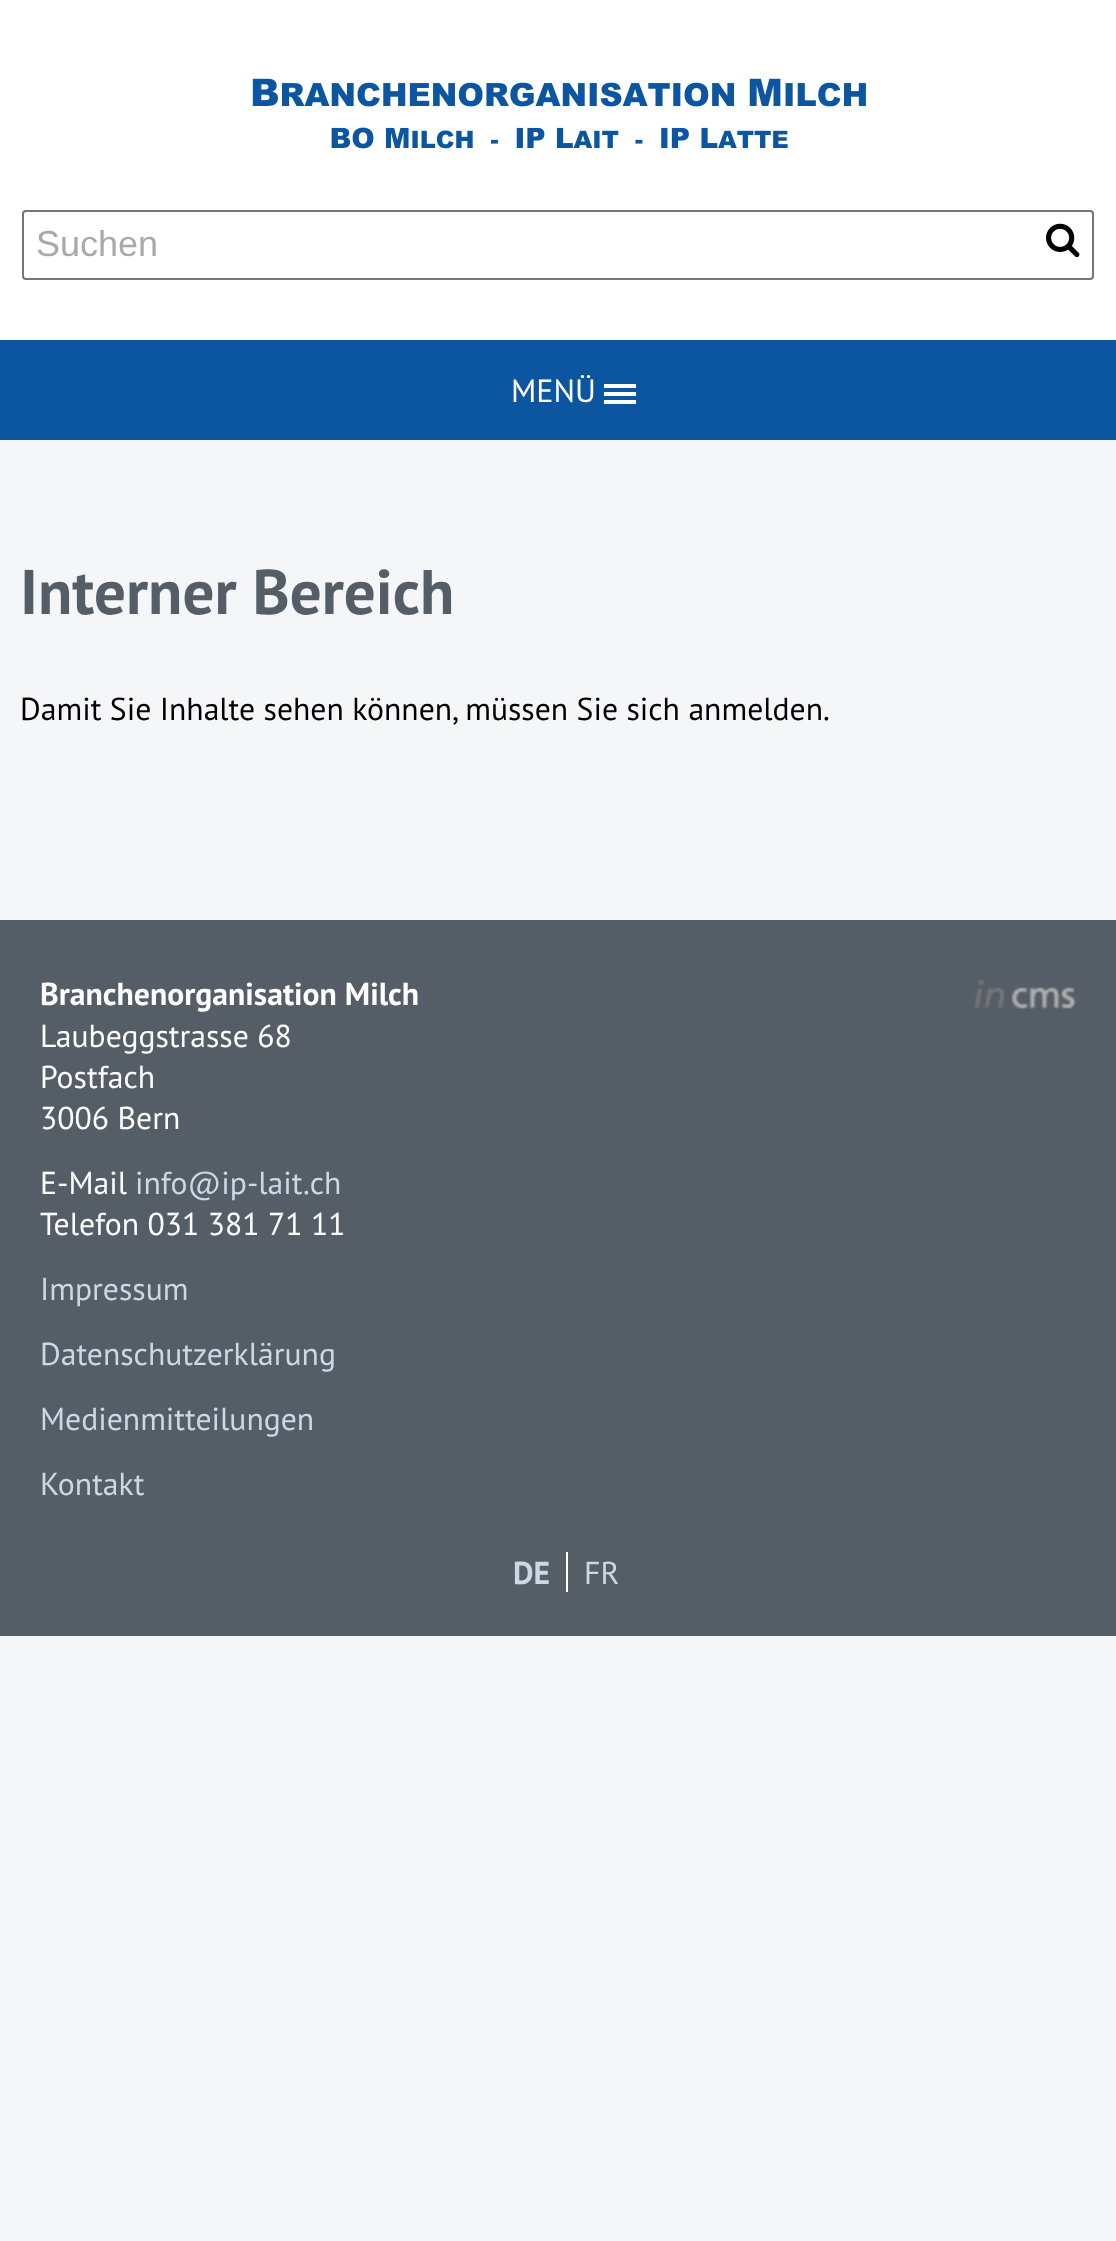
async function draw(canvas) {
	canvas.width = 1116;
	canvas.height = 2241;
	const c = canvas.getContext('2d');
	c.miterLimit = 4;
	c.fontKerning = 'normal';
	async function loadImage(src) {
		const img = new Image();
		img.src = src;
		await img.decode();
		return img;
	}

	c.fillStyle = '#f4f6f8';
	c.fillRect(0, 0, 1116, 2241);
	c.fillStyle = '#fff';
	c.fillRect(0, 0, 1116, 340);
	c.drawImage(await loadImage('img1.png'), 252, 78, 614, 71);
	c.beginPath();
	c.roundRect(23, 211, 1070, 68, 3);
	c.strokeStyle = '#767676';
	c.lineWidth = 2;
	c.stroke();
	c.font = '36px Liberation Sans';
	c.fillStyle = '#a9a9a9';
	c.fillText('Suchen', 36, 256);
	c.drawImage(await loadImage('img2.png'), 1046, 223, 34, 35);
	c.fillStyle = '#0c55a0';
	c.fillRect(0, 340, 1116, 100);
	c.font = '32px PT Sans';
	c.fillStyle = '#fff';
	c.fillText('MENÜ', 511, 402);
	for (const [x, y, w, h, color] of [
		[604, 400, 32, 4, '#fff'],
		[604, 392, 32, 4, '#fff'],
		[604, 384, 32, 4, '#fff'],
	]) {
		c.fillStyle = color;
		c.fillRect(x, y, w, h);
	}
	c.font = 'bold 63px PT Sans';
	c.fillStyle = '#555d66';
	c.fillText('Interner Bereich', 20, 614);
	c.font = '31.7px PT Sans';
	c.fillStyle = '#000';
	c.fillText('Damit Sie Inhalte sehen können, müssen Sie sich anmelden.', 20, 720);
	c.fillStyle = '#555d66';
	c.fillRect(0, 920, 1116, 716);
	c.font = 'bold 31.7px PT Sans';
	c.fillStyle = '#fff';
	c.fillText('Branchenorganisation Milch', 40, 1005);
	c.font = '31.7px PT Sans';
	for (const [text, x, y] of [
		['Laubeggstrasse 68', 40, 1047],
		['Postfach', 40, 1088],
		['3006 Bern', 40, 1129],
		['E-Mail', 40, 1194],
	]) {
		c.fillText(text, x, y);
	}
	c.fillStyle = '#cbd9e7';
	c.fillText('info@ip-lait.ch', 135, 1194);
	c.fillStyle = '#fff';
	c.fillText('Telefon 031 381 71 11', 40, 1235);
	c.fillStyle = '#cbd9e7';
	for (const [text, x, y] of [
		['Impressum', 40, 1300],
		['Datenschutzerklärung', 40, 1365],
		['Medienmitteilungen', 40, 1430],
		['Kontakt', 40, 1495],
	]) {
		c.fillText(text, x, y);
	}
	c.drawImage(await loadImage('img3.png'), 974, 980, 102, 29);
	c.font = 'bold 31.7px PT Sans';
	c.fillText('DE', 513, 1584);
	c.fillStyle = '#fff';
	c.fillRect(566, 1552, 2, 40);
	c.font = '31.7px PT Sans';
	c.fillStyle = '#cbd9e7';
	c.fillText('FR', 584, 1584);
}

draw(document.querySelector('canvas'));
